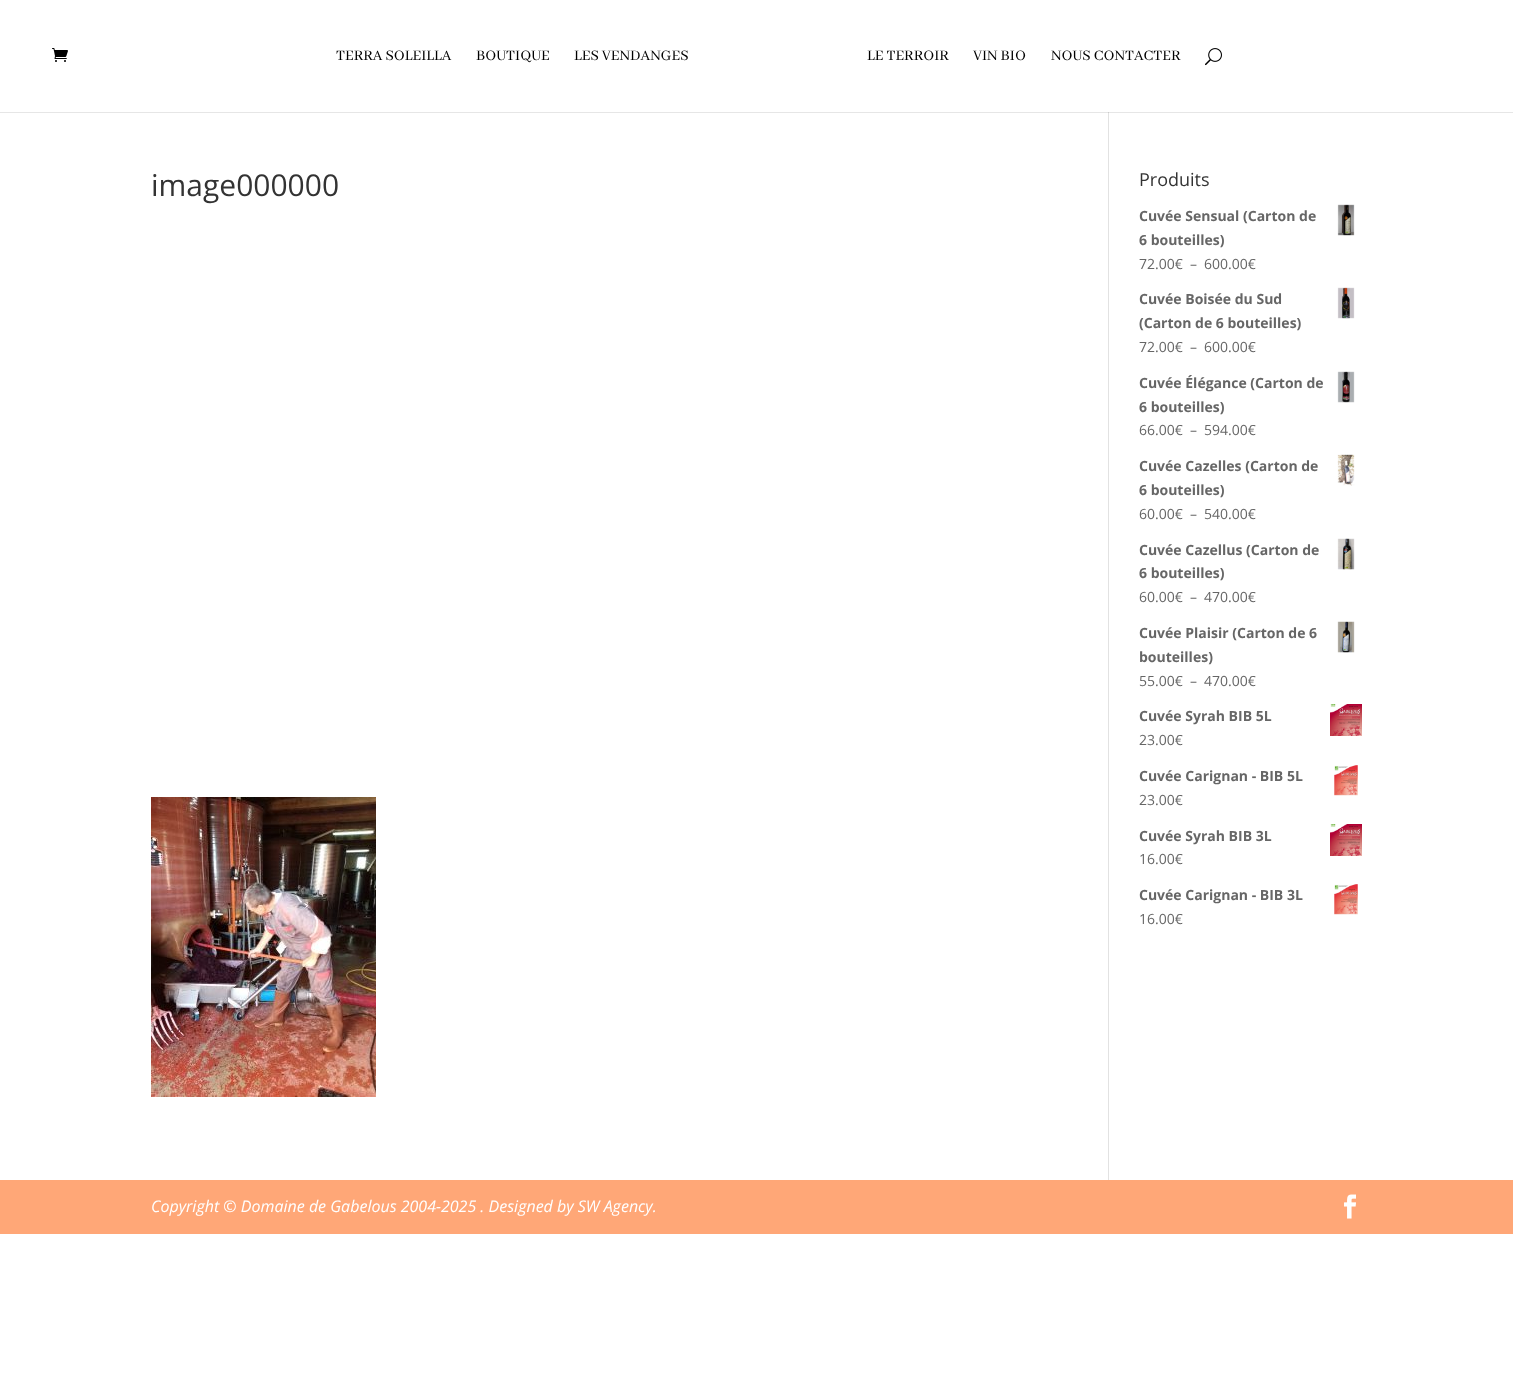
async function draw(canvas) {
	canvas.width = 1513;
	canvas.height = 1373;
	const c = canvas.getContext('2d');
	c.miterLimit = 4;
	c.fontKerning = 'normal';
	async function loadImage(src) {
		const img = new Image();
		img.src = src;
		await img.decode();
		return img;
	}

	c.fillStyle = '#fff';
	c.fillRect(0, 0, 1513, 1373);
	c.fillStyle = '#e6e6e6';
	c.fillRect(0, 112, 1513, 1);
	c.drawImage(await loadImage('img1.png'), 52, 48, 16, 14);
	c.font = '16px Abhaya Libre';
	c.fillStyle = '#000';
	for (const [text, x, y] of [
		['TERRA SOLEILLA', 336, 60],
		['BOUTIQUE', 476, 60],
		['LES VENDANGES', 574, 60],
		['LE TERROIR', 867, 60],
		['VIN BIO', 973, 60],
		['NOUS CONTACTER', 1051, 60],
	]) {
		c.fillText(text, x, y);
	}
	c.drawImage(await loadImage('img2.png'), 1205, 48, 17, 18);
	c.fillStyle = '#e2e2e2';
	c.fillRect(1108, 112, 1, 1068);
	c.fillStyle = '#cbcbcb';
	c.fillRect(1108, 112, 1, 1);
	c.font = '30px Open Sans';
	c.fillStyle = '#333';
	c.fillText('image000000', 151, 196);
	c.drawImage(await loadImage('img3.png'), 151, 797, 225, 300);
	c.font = '18px Open Sans';
	c.fillText('Produits', 1139, 186);
	c.font = 'bold 14px Open Sans';
	c.fillStyle = '#666';
	c.fillText('Cuvée Sensual (Carton de', 1139, 221);
	c.drawImage(await loadImage('img4.png'), 1337, 204, 18, 32);
	c.fillText('6 bouteilles)', 1139, 245);
	c.font = '14px Open Sans';
	for (const [text, x, y] of [
		['72.00€', 1139, 269],
		['–', 1190, 269],
		['600.00€', 1204, 269],
	]) {
		c.fillText(text, x, y);
	}
	c.font = 'bold 14px Open Sans';
	c.fillText('Cuvée Boisée du Sud', 1139, 304);
	c.drawImage(await loadImage('img5.png'), 1337, 287, 18, 32);
	c.fillText('(Carton de 6 bouteilles)', 1139, 328);
	c.font = '14px Open Sans';
	for (const [text, x, y] of [
		['72.00€', 1139, 352],
		['–', 1190, 352],
		['600.00€', 1204, 352],
	]) {
		c.fillText(text, x, y);
	}
	c.font = 'bold 14px Open Sans';
	c.fillText('Cuvée Élégance (Carton de', 1139, 388);
	c.drawImage(await loadImage('img6.png'), 1337, 371, 18, 32);
	c.fillText('6 bouteilles)', 1139, 412);
	c.font = '14px Open Sans';
	for (const [text, x, y] of [
		['66.00€', 1139, 435],
		['–', 1190, 435],
		['594.00€', 1204, 435],
	]) {
		c.fillText(text, x, y);
	}
	c.font = 'bold 14px Open Sans';
	c.fillText('Cuvée Cazelles (Carton de', 1139, 471);
	c.drawImage(await loadImage('img7.png'), 1337, 454, 18, 32);
	c.fillText('6 bouteilles)', 1139, 495);
	c.font = '14px Open Sans';
	for (const [text, x, y] of [
		['60.00€', 1139, 519],
		['–', 1190, 519],
		['540.00€', 1204, 519],
	]) {
		c.fillText(text, x, y);
	}
	c.font = 'bold 14px Open Sans';
	c.fillText('Cuvée Cazellus (Carton de', 1139, 555);
	c.drawImage(await loadImage('img8.png'), 1337, 538, 18, 32);
	c.fillText('6 bouteilles)', 1139, 578);
	c.font = '14px Open Sans';
	for (const [text, x, y] of [
		['60.00€', 1139, 602],
		['–', 1190, 602],
		['470.00€', 1204, 602],
	]) {
		c.fillText(text, x, y);
	}
	c.font = 'bold 14px Open Sans';
	c.fillText('Cuvée Plaisir (Carton de 6', 1139, 638);
	c.drawImage(await loadImage('img9.png'), 1337, 621, 18, 32);
	c.fillText('bouteilles)', 1139, 662);
	c.font = '14px Open Sans';
	for (const [text, x, y] of [
		['55.00€', 1139, 686],
		['–', 1190, 686],
		['470.00€', 1204, 686],
	]) {
		c.fillText(text, x, y);
	}
	c.font = 'bold 14px Open Sans';
	c.fillText('Cuvée Syrah BIB 5L', 1139, 721);
	c.drawImage(await loadImage('img10.png'), 1330, 704, 32, 32);
	c.font = '14px Open Sans';
	c.fillText('23.00€', 1139, 745);
	c.font = 'bold 14px Open Sans';
	c.fillText('Cuvée Carignan - BIB 5L', 1139, 781);
	c.drawImage(await loadImage('img11.png'), 1334, 765, 24, 31);
	c.font = '14px Open Sans';
	c.fillText('23.00€', 1139, 805);
	c.font = 'bold 14px Open Sans';
	c.fillText('Cuvée Syrah BIB 3L', 1139, 841);
	c.drawImage(await loadImage('img10.png'), 1330, 824, 32, 32);
	c.font = '14px Open Sans';
	c.fillText('16.00€', 1139, 864);
	c.font = 'bold 14px Open Sans';
	c.fillText('Cuvée Carignan - BIB 3L', 1139, 900);
	c.drawImage(await loadImage('img11.png'), 1334, 884, 24, 31);
	c.font = '14px Open Sans';
	c.fillText('16.00€', 1139, 924);
	c.fillStyle = '#ffa777';
	c.fillRect(0, 1180, 1513, 54);
	c.font = 'italic 16px Open Sans';
	c.fillStyle = '#fff';
	c.fillText('Copyright © Domaine de Gabelous 2004-2025 . Designed by SW Agency.', 151, 1212);
	c.drawImage(await loadImage('img12.png'), 1344, 1194, 12, 25);
}

draw(document.querySelector('canvas'));
